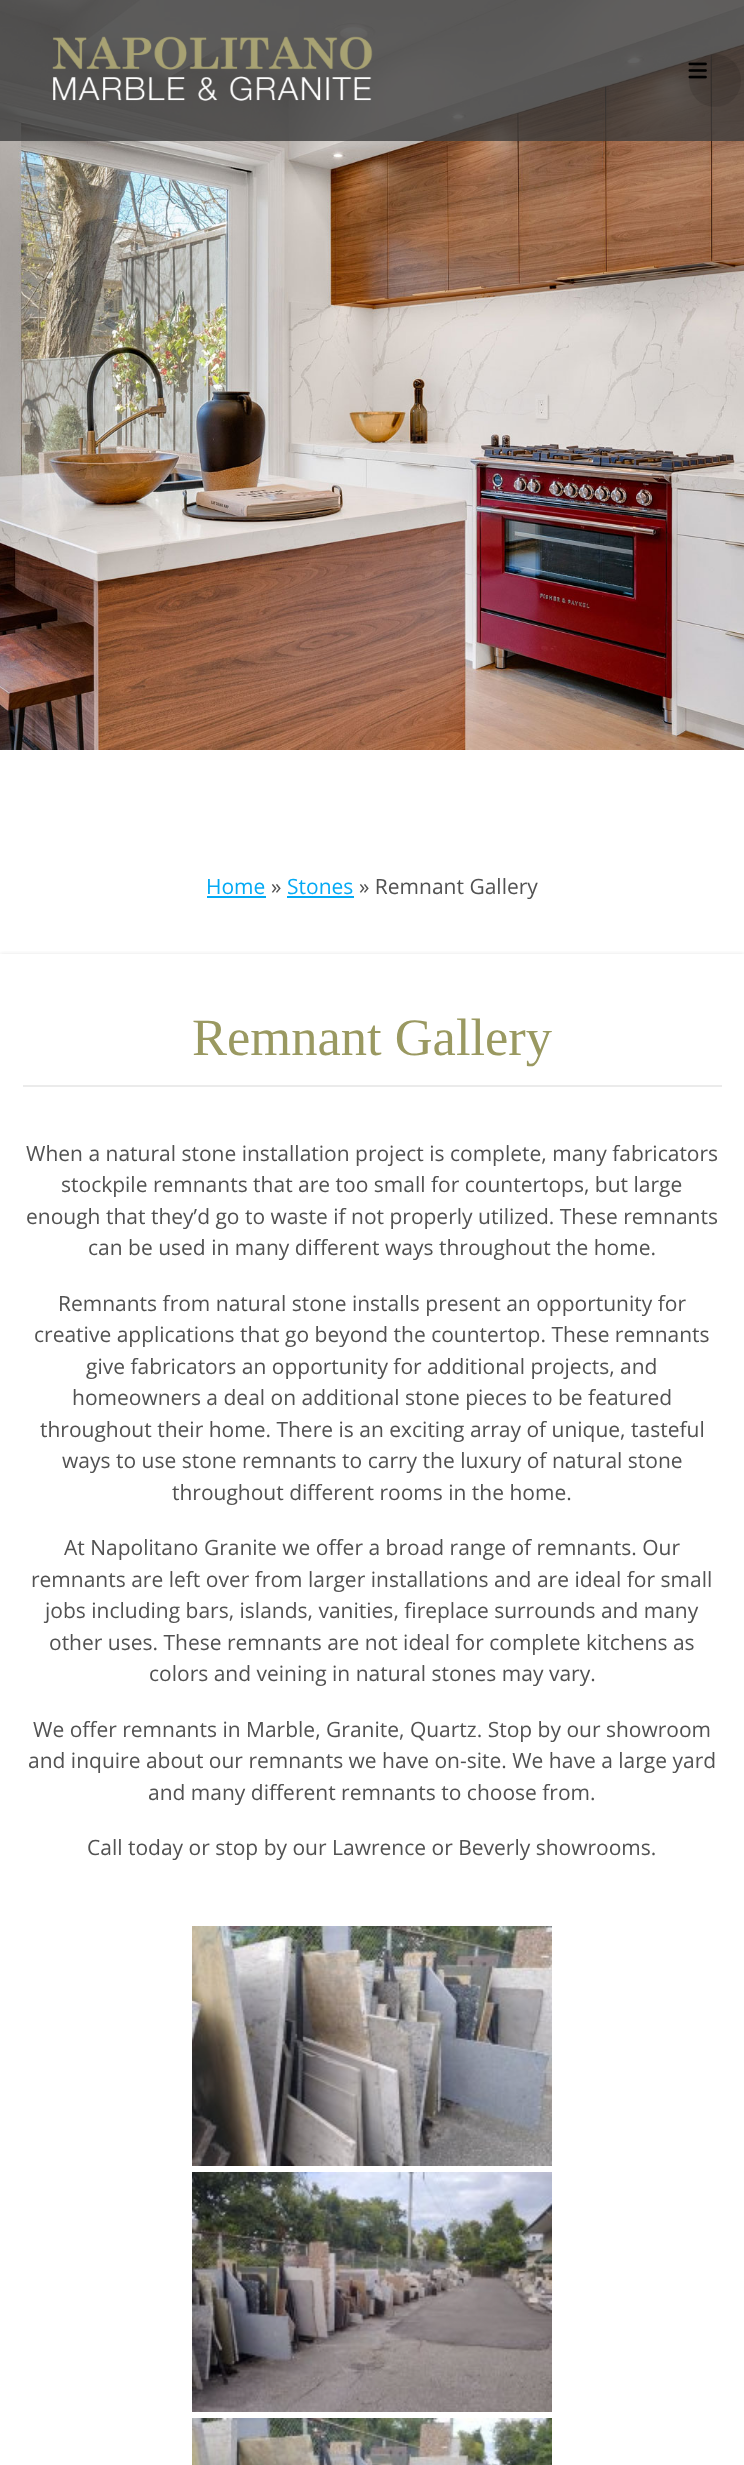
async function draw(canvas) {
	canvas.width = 744;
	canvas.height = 2465;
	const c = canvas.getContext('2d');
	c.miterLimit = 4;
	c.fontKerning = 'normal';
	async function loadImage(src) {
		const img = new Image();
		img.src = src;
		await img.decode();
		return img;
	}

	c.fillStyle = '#fff';
	c.fillRect(0, 0, 744, 2465);
	c.drawImage(await loadImage('img3.png'), 0, 0, 744, 750);
	c.fillStyle = '#3c3c3ccc';
	c.fillRect(0, 0, 744, 141);
	c.drawImage(await loadImage('img1.png'), 52, 36, 321, 65);
	c.drawImage(await loadImage('img2.png'), 688, 62, 19, 17);
	c.fillStyle = '#0000001a';
	c.beginPath();
	c.roundRect(689, 54, 52, 53, 26);
	c.fill();
	c.font = '21px Open Sans';
	c.fillStyle = '#03a9f4';
	c.fillText('Home', 206, 894);
	c.fillRect(207, 896, 59, 2);
	c.fillStyle = '#525252';
	c.fillText('»', 271, 894);
	c.fillStyle = '#03a9f4';
	c.fillText('Stones', 287, 894);
	c.fillRect(287, 896, 67, 2);
	c.fillStyle = '#525252';
	c.fillText('» Remnant Gallery', 359, 894);
	c.save();
	c.beginPath();
	c.rect(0, 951, 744, 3);
	c.clip();
	c.fillStyle = '#bdbdbd66';
	c.filter = 'blur(2px)';
	c.beginPath();
	c.rect(0, 954, 744, 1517);
	c.fill();
	c.filter = 'none';
	c.restore();
	c.font = '52.5px Liberation Serif';
	c.fillStyle = '#9a9961';
	c.fillText('Remnant Gallery', 192, 1055);
	c.fillStyle = '#ebebeb';
	c.fillRect(23, 1085, 699, 2);
	c.font = '21px Open Sans';
	c.fillStyle = '#525252';
	for (const [text, x, y] of [
		['When a natural stone installation project is complete, many fabricators', 26, 1161],
		['stockpile remnants that are too small for countertops, but large', 61, 1192],
		['enough that they’d go to waste if not properly utilized. These remnants', 26, 1224],
		['can be used in many different ways throughout the home.', 88, 1255],
		['Remnants from natural stone installs present an opportunity for', 58, 1311],
		['creative applications that go beyond the countertop. These remnants', 34, 1342],
		['give fabricators an opportunity for additional projects, and', 86, 1374],
		['homeowners a deal on additional stone pieces to be featured', 72, 1405],
		['throughout their home. There is an exciting array of unique, tasteful', 40, 1437],
		['ways to use stone remnants to carry the luxury of natural stone', 62, 1468],
		['throughout different rooms in the home.', 172, 1500],
		['At Napolitano Granite we offer a broad range of remnants. Our', 64, 1555],
		['remnants are left over from larger installations and are ideal for small', 31, 1587],
		['jobs including bars, islands, vanities, fireplace surrounds and many', 45, 1618],
		['other uses. These remnants are not ideal for complete kitchens as', 49, 1650],
		['colors and veining in natural stones may vary.', 149, 1681],
		['We offer remnants in Marble, Granite, Quartz. Stop by our showroom', 33, 1737],
		['and inquire about our remnants we have on-site. We have a large yard', 28, 1768],
		['and many different remnants to choose from.', 148, 1800],
		['Call today or stop by our Lawrence or Beverly showrooms.', 87, 1855],
	]) {
		c.fillText(text, x, y);
	}
	c.drawImage(await loadImage('img4.png'), 192, 1926, 360, 240);
	c.drawImage(await loadImage('img5.png'), 192, 2172, 360, 240);
	c.drawImage(await loadImage('img6.png'), 192, 2418, 360, 47);
}

draw(document.querySelector('canvas'));
